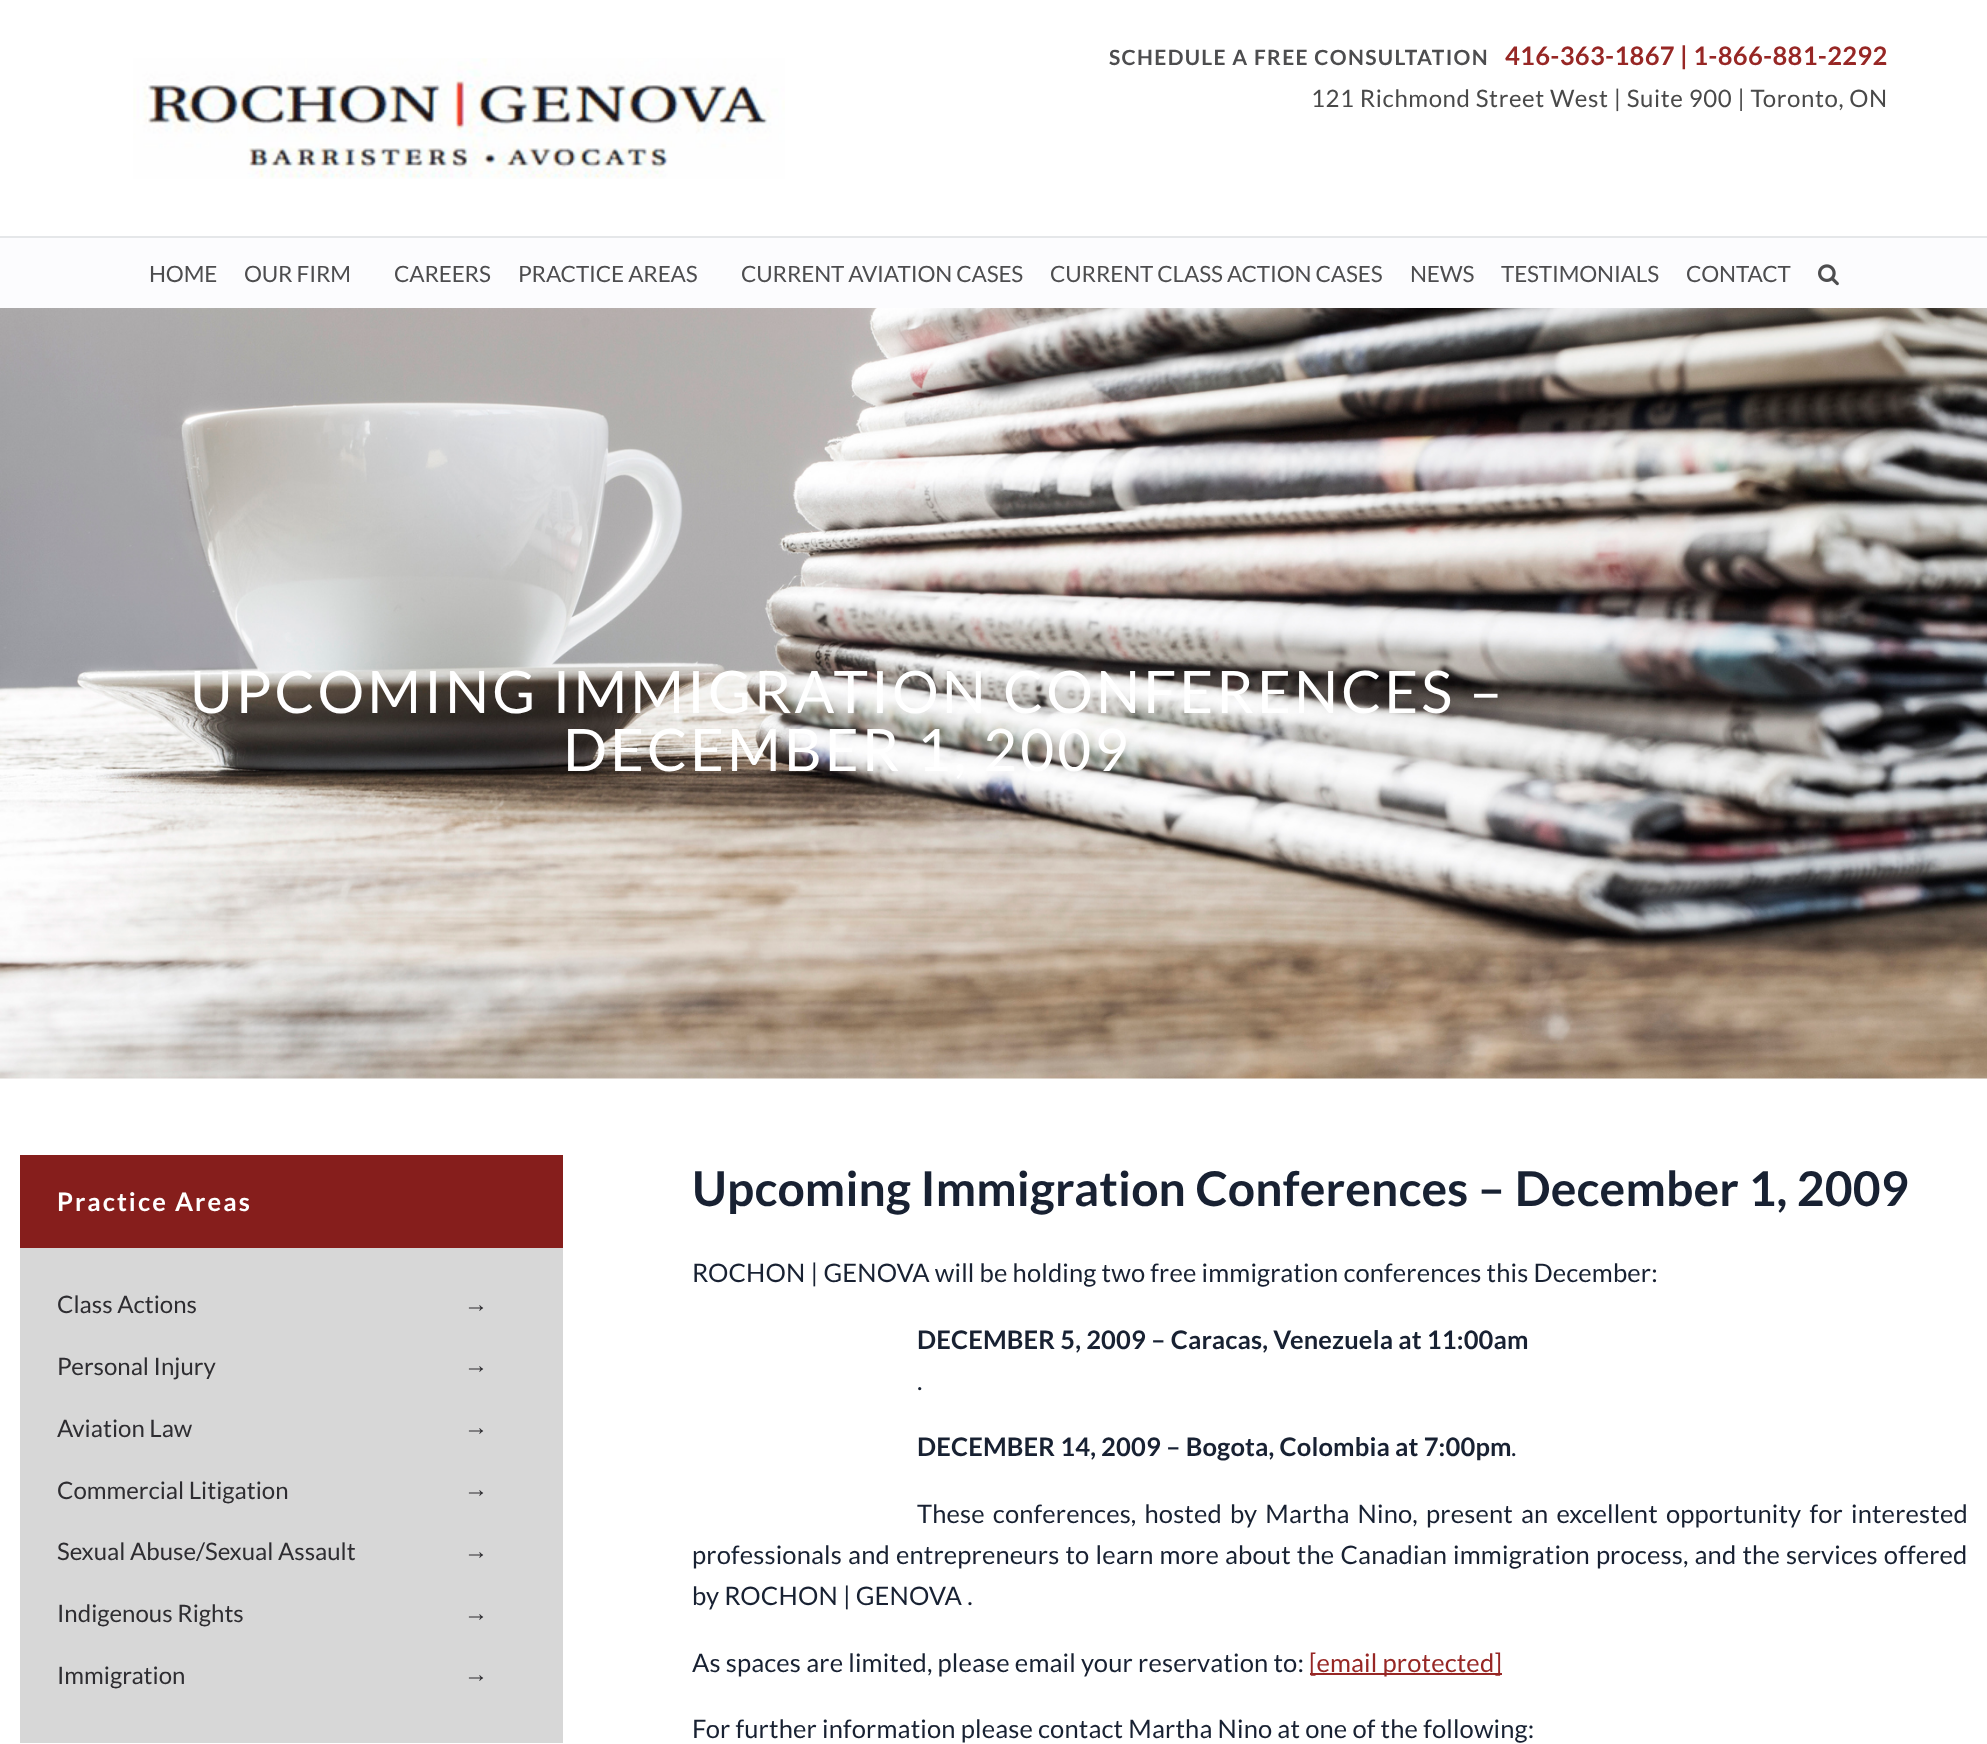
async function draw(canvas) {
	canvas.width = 1987;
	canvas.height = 1744;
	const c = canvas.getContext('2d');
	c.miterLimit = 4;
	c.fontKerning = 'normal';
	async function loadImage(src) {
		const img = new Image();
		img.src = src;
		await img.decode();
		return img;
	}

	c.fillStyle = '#fff';
	c.fillRect(0, 0, 1987, 1744);
	c.drawImage(await loadImage('img1.png'), 133, 58, 652, 121);
	c.letterSpacing = '1.35px';
	c.font = 'bold 21px Lato';
	c.fillStyle = '#4d4d4f';
	c.fillText('SCHEDULE A FREE CONSULTATION', 1109, 65);
	c.letterSpacing = '0.3px';
	c.font = 'bold 25.5px Lato';
	c.fillStyle = '#972725';
	c.fillText('416-363-1867 | 1-866-881-2292', 1505, 65);
	c.letterSpacing = '0.6px';
	c.font = '24px Lato';
	c.fillStyle = '#494949';
	c.fillText('121 Richmond Street West | Suite 900 | Toronto, ON', 1311, 107);
	c.fillStyle = '#fcfcfe';
	c.fillRect(0, 238, 1987, 70);
	c.fillStyle = '#e5e7e9';
	c.fillRect(0, 236, 1987, 2);
	c.letterSpacing = '-0.15px';
	c.font = '22.5px Lato';
	c.fillStyle = '#4d4d4f';
	for (const [text, x, y] of [
		['HOME', 149, 282],
		['OUR FIRM', 244, 282],
		['CAREERS', 394, 282],
		['PRACTICE AREAS', 518, 282],
		['CURRENT AVIATION CASES', 741, 282],
		['CURRENT CLASS ACTION CASES', 1050, 282],
		['NEWS', 1410, 282],
		['TESTIMONIALS', 1501, 282],
		['CONTACT', 1686, 282],
	]) {
		c.fillText(text, x, y);
	}
	c.drawImage(await loadImage('img2.png'), 1818, 264, 21, 22);
	c.drawImage(await loadImage('img3.png'), 0, 308, 1987, 771);
	c.letterSpacing = '3px';
	c.font = '58.5px Lato';
	c.fillStyle = '#fff';
	c.fillText('UPCOMING IMMIGRATION CONFERENCES –', 190, 713);
	c.fillText('DECEMBER 1, 2009', 563, 771);
	c.fillStyle = '#861e1c';
	c.fillRect(20, 1155, 543, 93);
	c.letterSpacing = '2.1px';
	c.font = 'bold 25.5px Lato';
	c.fillStyle = '#fff';
	c.fillText('Practice Areas', 57, 1211);
	c.fillStyle = '#d7d7d7';
	c.fillRect(20, 1248, 543, 495);
	c.letterSpacing = '0px';
	c.font = '24px Lato';
	c.fillStyle = '#2e2d31';
	c.fillText('Class Actions', 57, 1313);
	c.font = '24px Liberation Sans';
	c.fillText('→', 464, 1312);
	c.font = '24px Lato';
	c.fillText('Personal Injury', 57, 1375);
	c.font = '24px Liberation Sans';
	c.fillText('→', 464, 1373);
	c.font = '24px Lato';
	c.fillText('Aviation Law', 57, 1437);
	c.font = '24px Liberation Sans';
	c.fillText('→', 464, 1435);
	c.font = '24px Lato';
	c.fillText('Commercial Litigation', 57, 1499);
	c.font = '24px Liberation Sans';
	c.fillText('→', 464, 1497);
	c.font = '24px Lato';
	c.fillText('Sexual Abuse/Sexual Assault', 57, 1560);
	c.font = '24px Liberation Sans';
	c.fillText('→', 464, 1559);
	c.font = '24px Lato';
	c.fillText('Indigenous Rights', 57, 1622);
	c.font = '24px Liberation Sans';
	c.fillText('→', 464, 1621);
	c.font = '24px Lato';
	c.fillText('Immigration', 57, 1684);
	c.font = '24px Liberation Sans';
	c.fillText('→', 464, 1682);
	c.letterSpacing = '0.15px';
	c.font = 'bold 48px Lato';
	c.fillStyle = '#182132';
	c.fillText('Upcoming Immigration Conferences – December 1, 2009', 692, 1206);
	c.font = '25.5px Lato';
	c.fillText('ROCHON | GENOVA will be holding two free immigration conferences this December:', 692, 1282);
	c.font = 'bold 25.5px Lato';
	c.fillText('DECEMBER 5, 2009 – Caracas, Venezuela at 11:00am', 917, 1349);
	c.font = '25.5px Lato';
	c.fillText('.', 917, 1390);
	c.font = 'bold 25.5px Lato';
	c.fillText('DECEMBER 14, 2009 – Bogota, Colombia at 7:00pm', 917, 1456);
	c.font = '25.5px Lato';
	c.fillText('.', 1511, 1456);
	c.wordSpacing = '3px';
	c.fillText('These conferences, hosted by Martha Nino, present an excellent opportunity for interested', 917, 1523);
	c.wordSpacing = '1px';
	c.fillText('professionals and entrepreneurs to learn more about the Canadian immigration process, and the services offered', 692, 1564);
	c.wordSpacing = '0px';
	c.fillText('by ROCHON | GENOVA .', 692, 1605);
	c.fillText('As spaces are limited, please email your reservation to:', 692, 1672);
	c.fillStyle = '#972725';
	c.fillRect(1310, 1673, 192, 2);
	c.fillText('[email protected]', 1309, 1672);
	c.fillStyle = '#182132';
	c.fillText('For further information please contact Martha Nino at one of the following:', 692, 1738);
}

draw(document.querySelector('canvas'));
